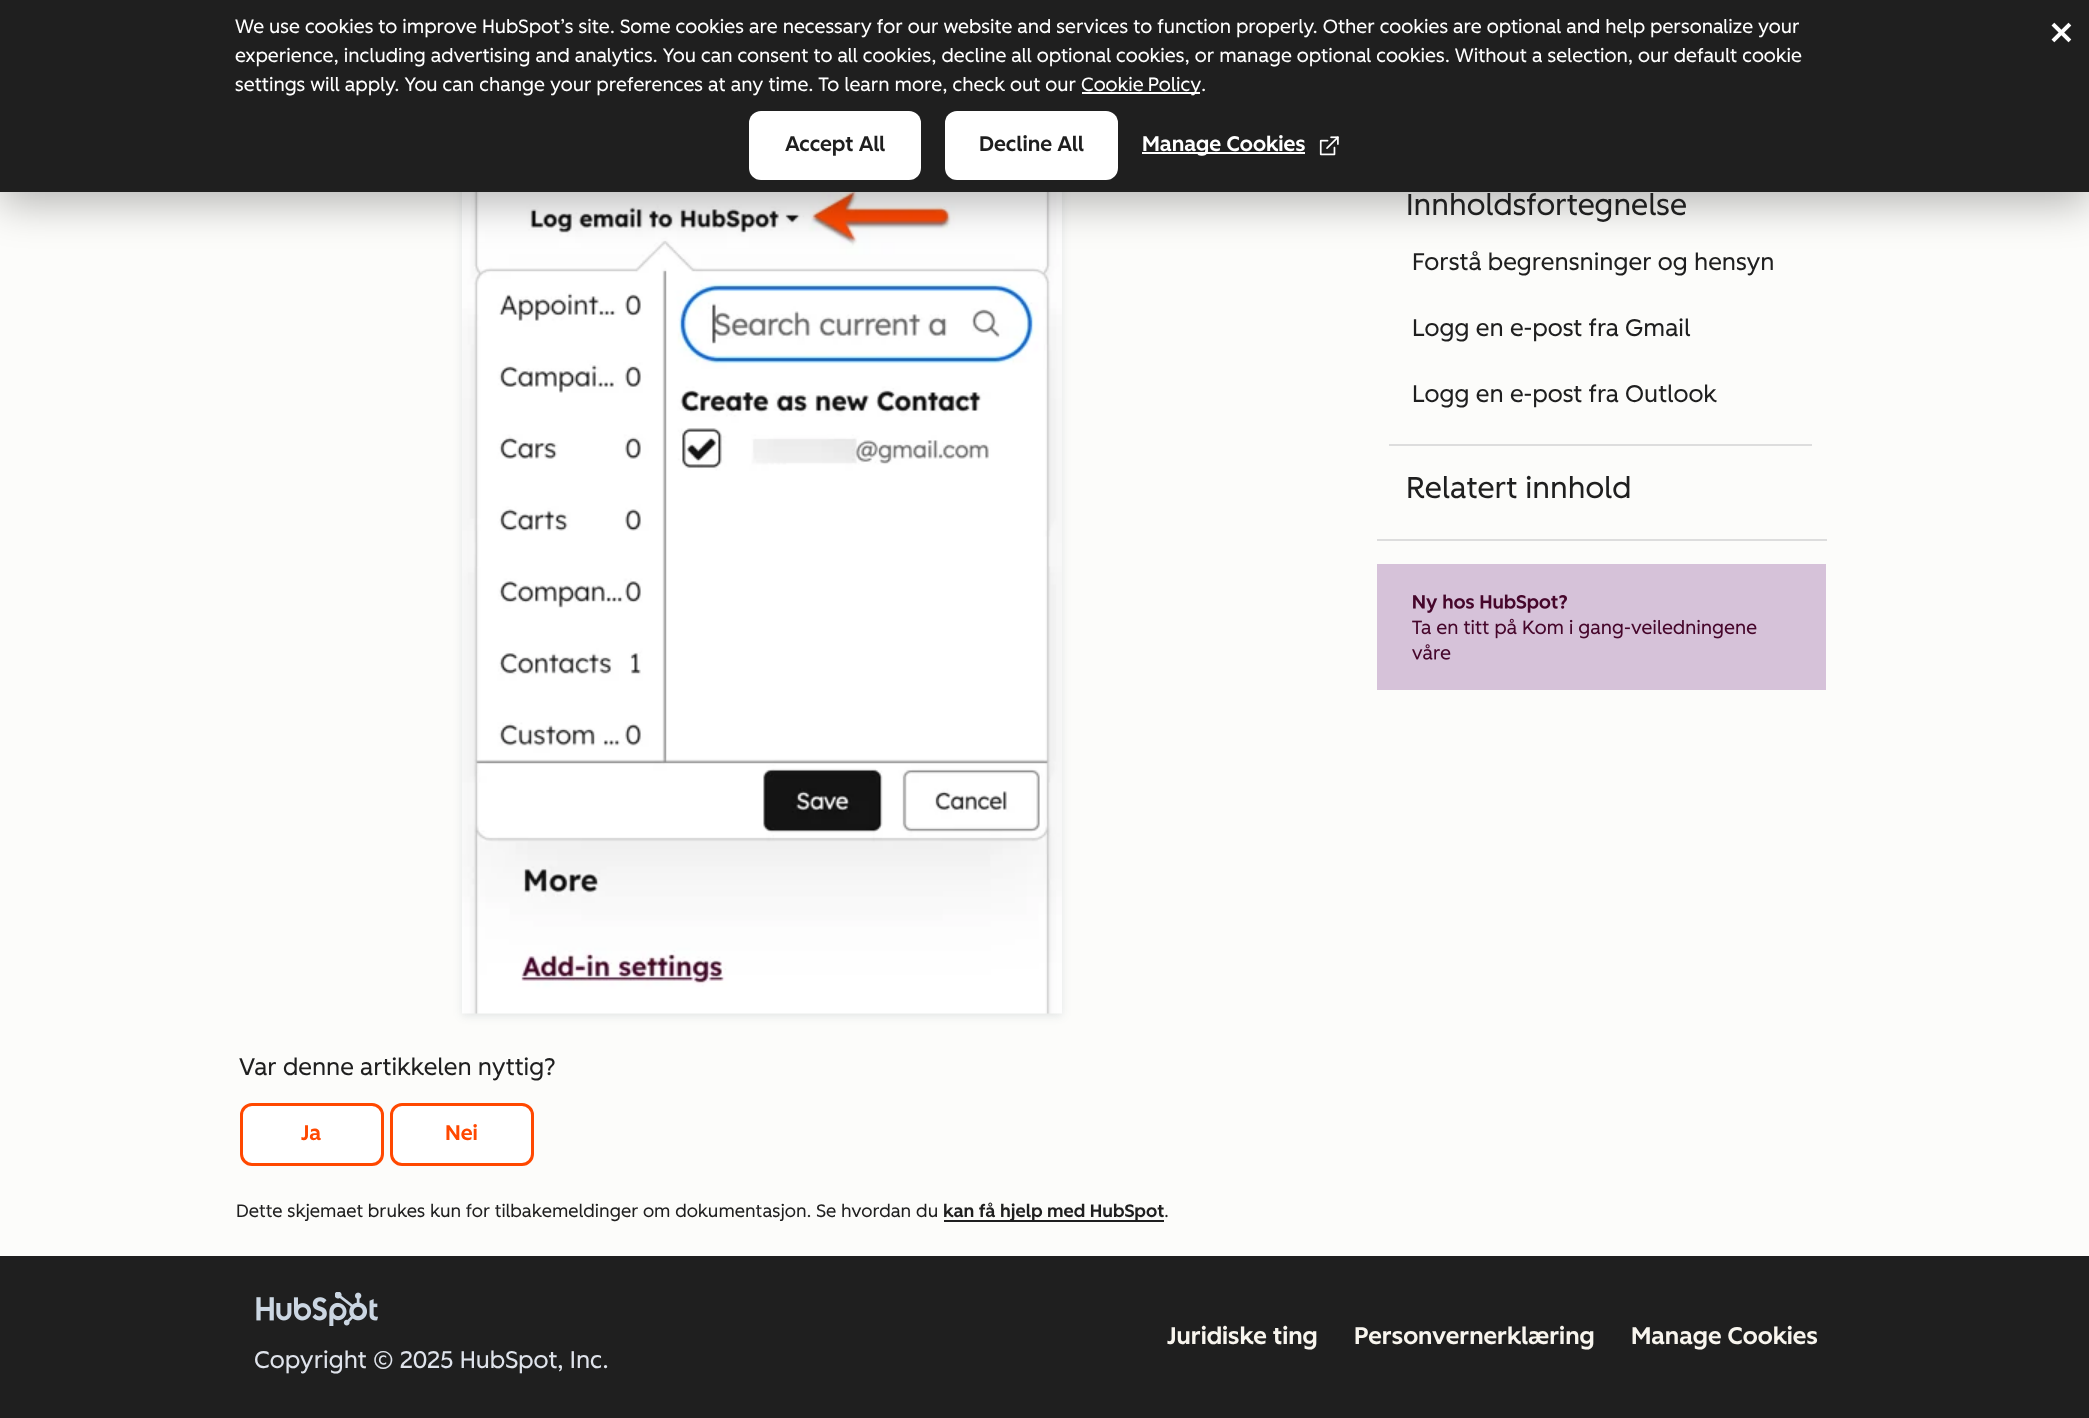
async function draw(canvas) {
	canvas.width = 2089;
	canvas.height = 1418;
	const c = canvas.getContext('2d');
	c.miterLimit = 4;
	c.fontKerning = 'normal';
	async function loadImage(src) {
		const img = new Image();
		img.src = src;
		await img.decode();
		return img;
	}

	c.fillStyle = '#fcfcfa';
	c.fillRect(0, 0, 2089, 1418);
	c.fillStyle = '#2d3e501f';
	c.filter = 'blur(4px)';
	c.beginPath();
	c.rect(462, -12, 600, 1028);
	c.fill();
	c.filter = 'none';
	c.drawImage(await loadImage('img3.png'), 462, 192, 600, 822);
	c.fillStyle = '#00000047';
	c.filter = 'blur(21px)';
	c.beginPath();
	c.rect(0, 12, 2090, 192);
	c.fill();
	c.filter = 'none';
	c.fillStyle = '#1f1f1f';
	c.fillRect(0, 0, 2089, 192);
	c.font = '19.2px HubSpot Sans';
	c.fillStyle = '#fff';
	for (const [text, x, y] of [
		['We use cookies to improve HubSpot’s site. Some cookies are necessary for our website and services to function properly. Other cookies are optional and help personalize your', 235, 33],
		['experience, including advertising and analytics. You can consent to all cookies, decline all optional cookies, or manage optional cookies. Without a selection, our default cookie', 235, 62],
		['settings will apply. You can change your preferences at any time. To learn more, check out our', 235, 91],
	]) {
		c.fillText(text, x, y);
	}
	c.fillRect(1082, 92, 118, 2);
	c.wordSpacing = '-1px';
	c.fillText('Cookie Policy', 1081, 91);
	c.wordSpacing = '0px';
	c.fillText('.', 1201, 91);
	c.beginPath();
	c.roundRect(749, 111, 172, 69, 12);
	c.fill();
	c.font = '500 21px HubSpot Sans';
	c.fillStyle = '#1f1f1f';
	c.fillText('Accept All', 785, 151);
	c.fillStyle = '#fff';
	c.beginPath();
	c.roundRect(945, 111, 173, 69, 12);
	c.fill();
	c.fillStyle = '#1f1f1f';
	c.fillText('Decline All', 979, 151);
	c.fillStyle = '#fff';
	c.fillRect(1142, 152, 163, 2);
	c.fillText('Manage Cookies', 1142, 151);
	c.drawImage(await loadImage('img1.png'), 1319, 136, 20, 20);
	c.font = '48px HubSpot Sans';
	c.fillText('×', 2047, 47);
	c.font = '30px HubSpot Sans';
	c.fillStyle = '#1f1f1f';
	c.fillText('Innholdsfortegnelse', 1406, 215);
	c.font = '24px HubSpot Sans';
	for (const [text, x, y] of [
		['Forstå begrensninger og hensyn', 1412, 270],
		['Logg en e-post fra Gmail', 1412, 336],
		['Logg en e-post fra Outlook', 1412, 402],
	]) {
		c.fillText(text, x, y);
	}
	c.fillStyle = '#ddd';
	c.fillRect(1389, 444, 423, 2);
	c.font = '30px HubSpot Sans';
	c.fillStyle = '#1f1f1f';
	c.fillText('Relatert innhold', 1406, 498);
	c.fillStyle = '#ddd';
	c.fillRect(1377, 539, 450, 2);
	c.drawImage(await loadImage('img2.png'), 1377, 564, 449, 126);
	c.font = '24px HubSpot Sans';
	c.fillStyle = '#1f1f1f';
	c.fillText('Var denne artikkelen nyttig?', 239, 1075);
	c.fillStyle = '#fff';
	c.beginPath();
	c.roundRect(241.5, 1104.5, 141, 60, 10.5);
	c.fill();
	c.strokeStyle = '#ff4800';
	c.lineWidth = 3;
	c.stroke();
	c.font = '500 21px HubSpot Sans';
	c.fillStyle = '#ff4800';
	c.fillText('Ja', 301, 1140);
	c.fillStyle = '#fff';
	c.beginPath();
	c.roundRect(391.5, 1104.5, 141, 60, 10.5);
	c.fill();
	c.stroke();
	c.fillStyle = '#ff4800';
	c.fillText('Nei', 445, 1140);
	c.font = '18px HubSpot Sans';
	c.fillStyle = '#1f1f1f';
	c.fillText('Dette skjemaet brukes kun for tilbakemeldinger om dokumentasjon. Se hvordan du', 236, 1217);
	c.fillRect(944, 1220, 220, 2);
	c.font = '500 18px HubSpot Sans';
	c.fillText('kan få hjelp med HubSpot', 943, 1217);
	c.font = '18px HubSpot Sans';
	c.fillText('.', 1164, 1217);
	c.fillRect(0, 1256, 2089, 162);
	c.font = '500 24px HubSpot Sans';
	c.fillStyle = '#f8f5ee';
	for (const [text, x, y] of [
		['Juridiske ting', 1167, 1344],
		['Personvernerklæring', 1354, 1344],
		['Manage Cookies', 1631, 1344],
	]) {
		c.fillText(text, x, y);
	}
	c.drawImage(await loadImage('img4.png'), 256, 1292, 122, 34);
	c.font = '24px HubSpot Sans';
	c.fillStyle = '#dfe3eb';
	c.fillText('Copyright © 2025 HubSpot, Inc.', 254, 1368);
}

draw(document.querySelector('canvas'));
